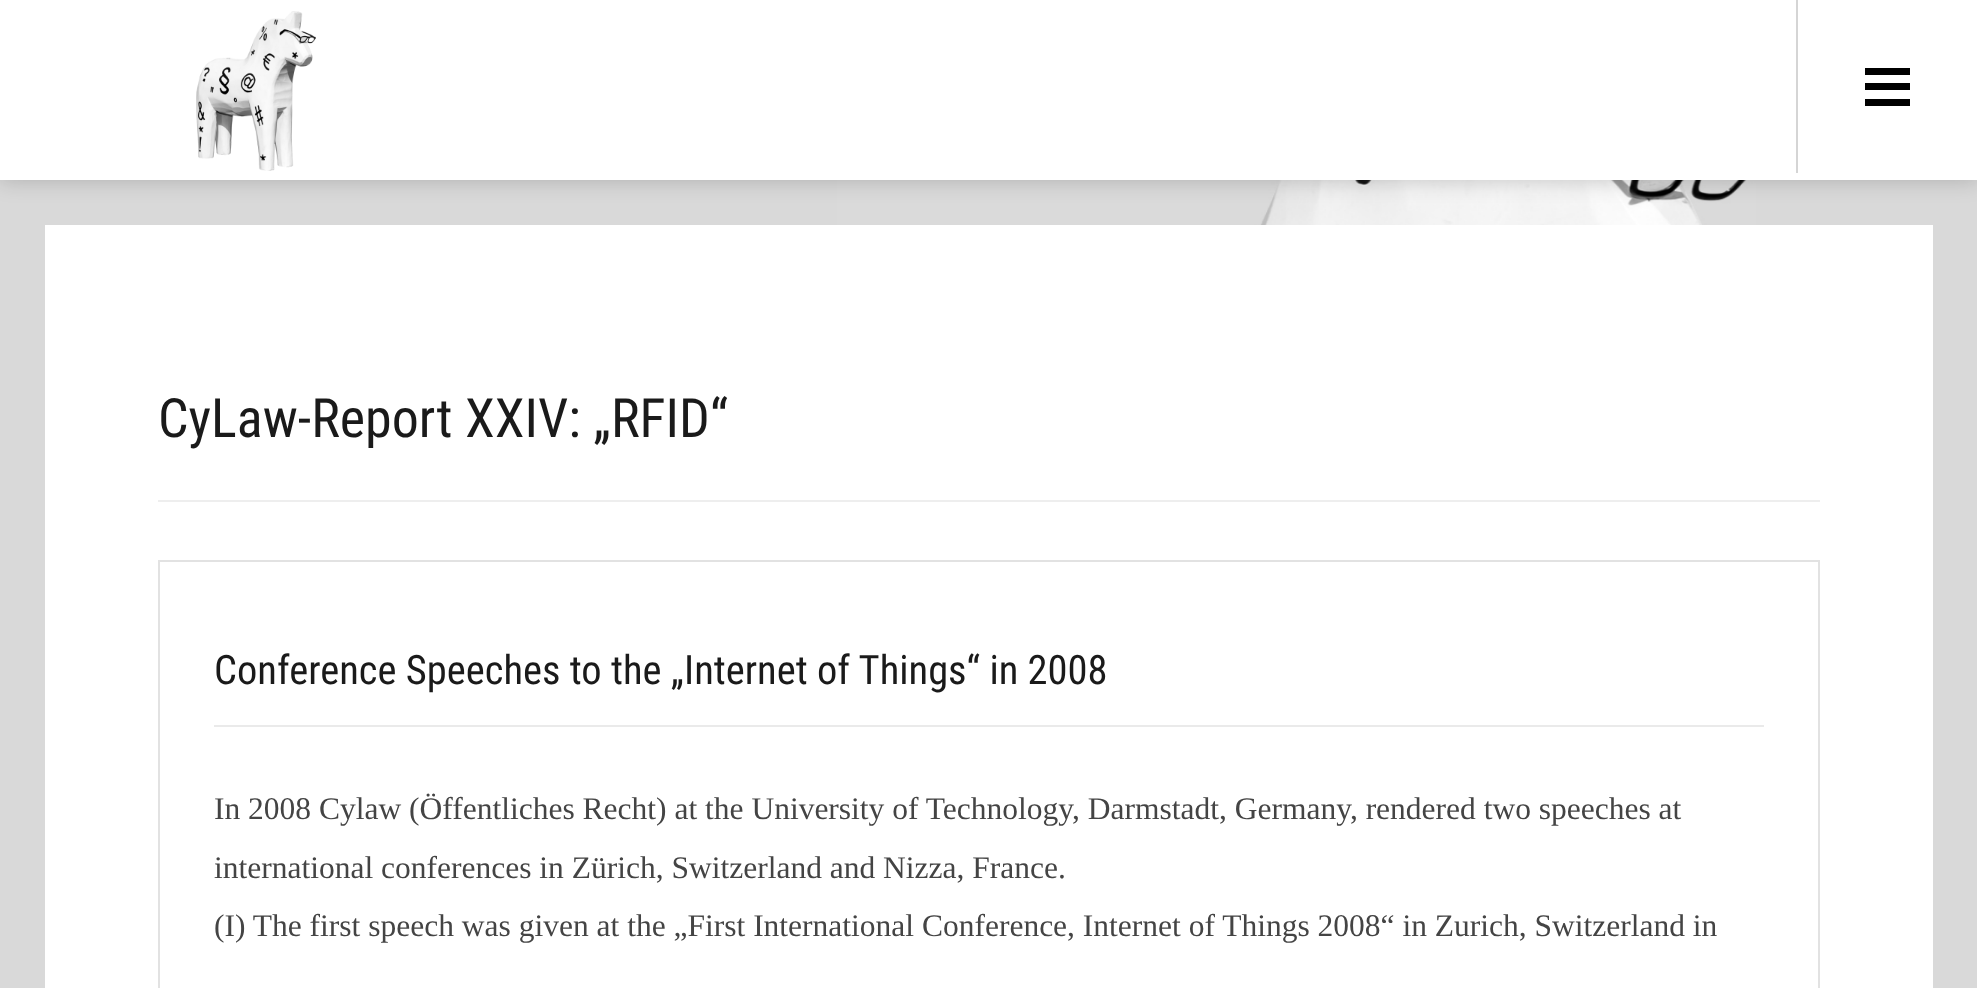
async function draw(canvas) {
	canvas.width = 1977;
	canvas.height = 988;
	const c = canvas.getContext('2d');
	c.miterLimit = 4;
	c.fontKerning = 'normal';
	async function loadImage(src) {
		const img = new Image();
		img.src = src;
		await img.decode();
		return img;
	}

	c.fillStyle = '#d9d9d9';
	c.fillRect(0, 0, 1977, 988);
	c.drawImage(await loadImage('img1.png'), 837, 180, 919, 45);
	c.fillStyle = '#00000033';
	c.filter = 'blur(11px)';
	c.beginPath();
	c.rect(0, 0, 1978, 180);
	c.fill();
	c.filter = 'none';
	c.fillStyle = '#fff';
	c.fillRect(0, 0, 1977, 180);
	c.drawImage(await loadImage('img2.png'), 196, 11, 120, 160);
	for (const [x, y, w, h, color] of [
		[1796, 0, 2, 173, '#d5d5d5'],
		[1865, 68, 45, 7, '#000'],
		[1865, 83, 45, 7, '#000'],
		[1865, 99, 45, 7, '#000'],
		[45, 225, 1888, 763, '#fff'],
		[158, 500, 1662, 2, '#eee'],
	]) {
		c.fillStyle = color;
		c.fillRect(x, y, w, h);
	}
	c.font = '54px Roboto Condensed';
	c.fillStyle = '#1a1a1a';
	c.fillText('CyLaw-Report XXIV: „RFID“', 158, 437);
	c.strokeStyle = '#e2e2e2';
	c.lineWidth = 2;
	c.strokeRect(159, 561, 1660, 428);
	c.fillStyle = '#eaeaea';
	c.fillRect(214, 725, 1550, 2);
	c.font = '40.5px Roboto Condensed';
	c.fillStyle = '#1a1a1a';
	c.fillText('Conference Speeches to the „Internet of Things“ in 2008', 214, 684);
	c.font = '31.5px Liberation Serif';
	c.fillStyle = '#444';
	for (const [text, x, y] of [
		['In 2008 Cylaw (Öffentliches Recht) at the University of Technology, Darmstadt, Germany, rendered two speeches at', 214, 819],
		['international conferences in Zürich, Switzerland and Nizza, France.', 214, 878],
		['(I) The first speech was given at the „First International Conference, Internet of Things 2008“ in Zurich, Switzerland in', 214, 936],
	]) {
		c.fillText(text, x, y);
	}
}

draw(document.querySelector('canvas'));
